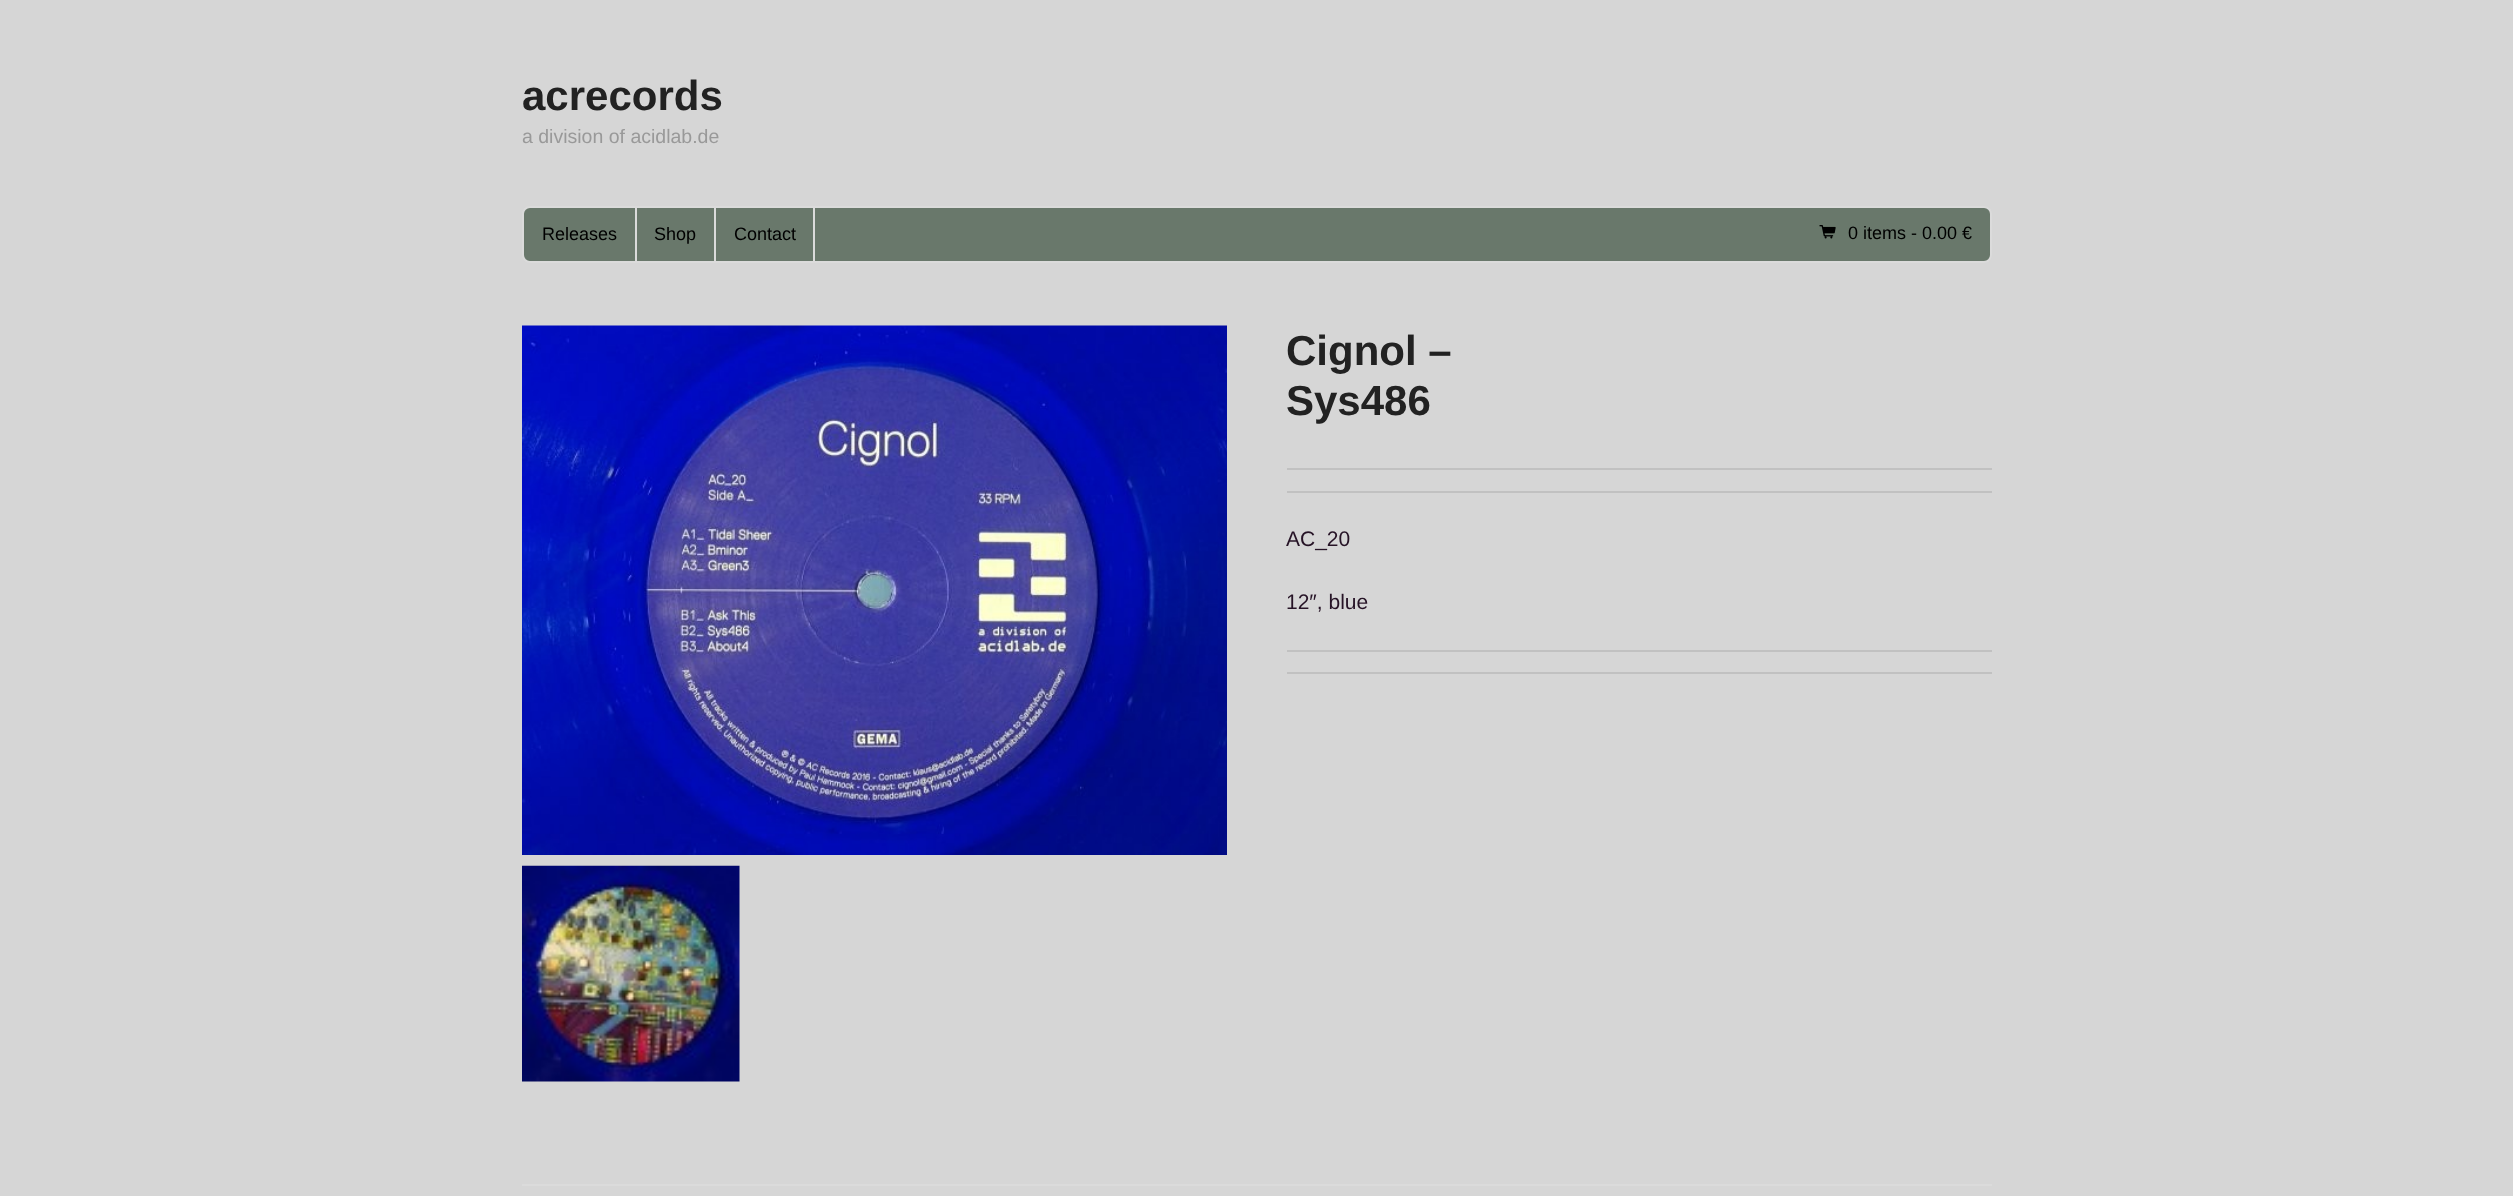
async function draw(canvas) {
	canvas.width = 2513;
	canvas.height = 1196;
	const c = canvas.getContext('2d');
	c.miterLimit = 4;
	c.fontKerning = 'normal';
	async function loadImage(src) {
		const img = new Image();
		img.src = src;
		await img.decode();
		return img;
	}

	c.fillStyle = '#d6d6d6';
	c.fillRect(0, 0, 2513, 1196);
	c.font = 'bold 42px Liberation Sans';
	c.fillStyle = '#222';
	c.fillText('acrecords', 522, 110);
	c.font = '19.5px Liberation Sans';
	c.fillStyle = '#999';
	c.fillText('a division of acidlab.de', 522, 143);
	c.fillStyle = '#69786b';
	c.beginPath();
	c.roundRect(523, 207, 1468, 55, 7);
	c.fill();
	c.strokeStyle = '#dbdbdb';
	c.lineWidth = 2;
	c.stroke();
	c.fillStyle = '#dbdbdb';
	c.fillRect(635, 207, 2, 54);
	c.font = '18px Liberation Sans';
	c.fillStyle = '#000';
	c.fillText('Releases', 542, 240);
	c.fillStyle = '#dbdbdb';
	c.fillRect(714, 207, 2, 54);
	c.fillStyle = '#000';
	c.fillText('Shop', 654, 240);
	c.fillStyle = '#dbdbdb';
	c.fillRect(813, 207, 2, 54);
	c.fillStyle = '#000';
	c.fillText('Contact', 734, 240);
	c.drawImage(await loadImage('img1.png'), 1819, 225, 17, 14);
	c.fillText('0 items - 0.00 €', 1848, 239);
	c.drawImage(await loadImage('img2.png'), 522, 325, 705, 530);
	c.drawImage(await loadImage('img3.png'), 522, 865, 218, 217);
	c.font = 'bold 42px Liberation Sans';
	c.fillStyle = '#222';
	c.fillText('Cignol –', 1286, 365);
	c.fillText('Sys486', 1286, 415);
	c.fillStyle = '#c1c1c1';
	c.fillRect(1287, 468, 705, 2);
	c.fillRect(1287, 491, 705, 2);
	c.font = '21px Liberation Sans';
	c.fillStyle = '#261326';
	c.fillText('AC_20', 1286, 546);
	c.fillText('12″, blue', 1286, 609);
	for (const [x, y, w, h, color] of [
		[1287, 650, 705, 2, '#c1c1c1'],
		[1287, 672, 705, 2, '#c1c1c1'],
		[522, 1184, 1470, 2, '#dbdbdb'],
	]) {
		c.fillStyle = color;
		c.fillRect(x, y, w, h);
	}
}

draw(document.querySelector('canvas'));
